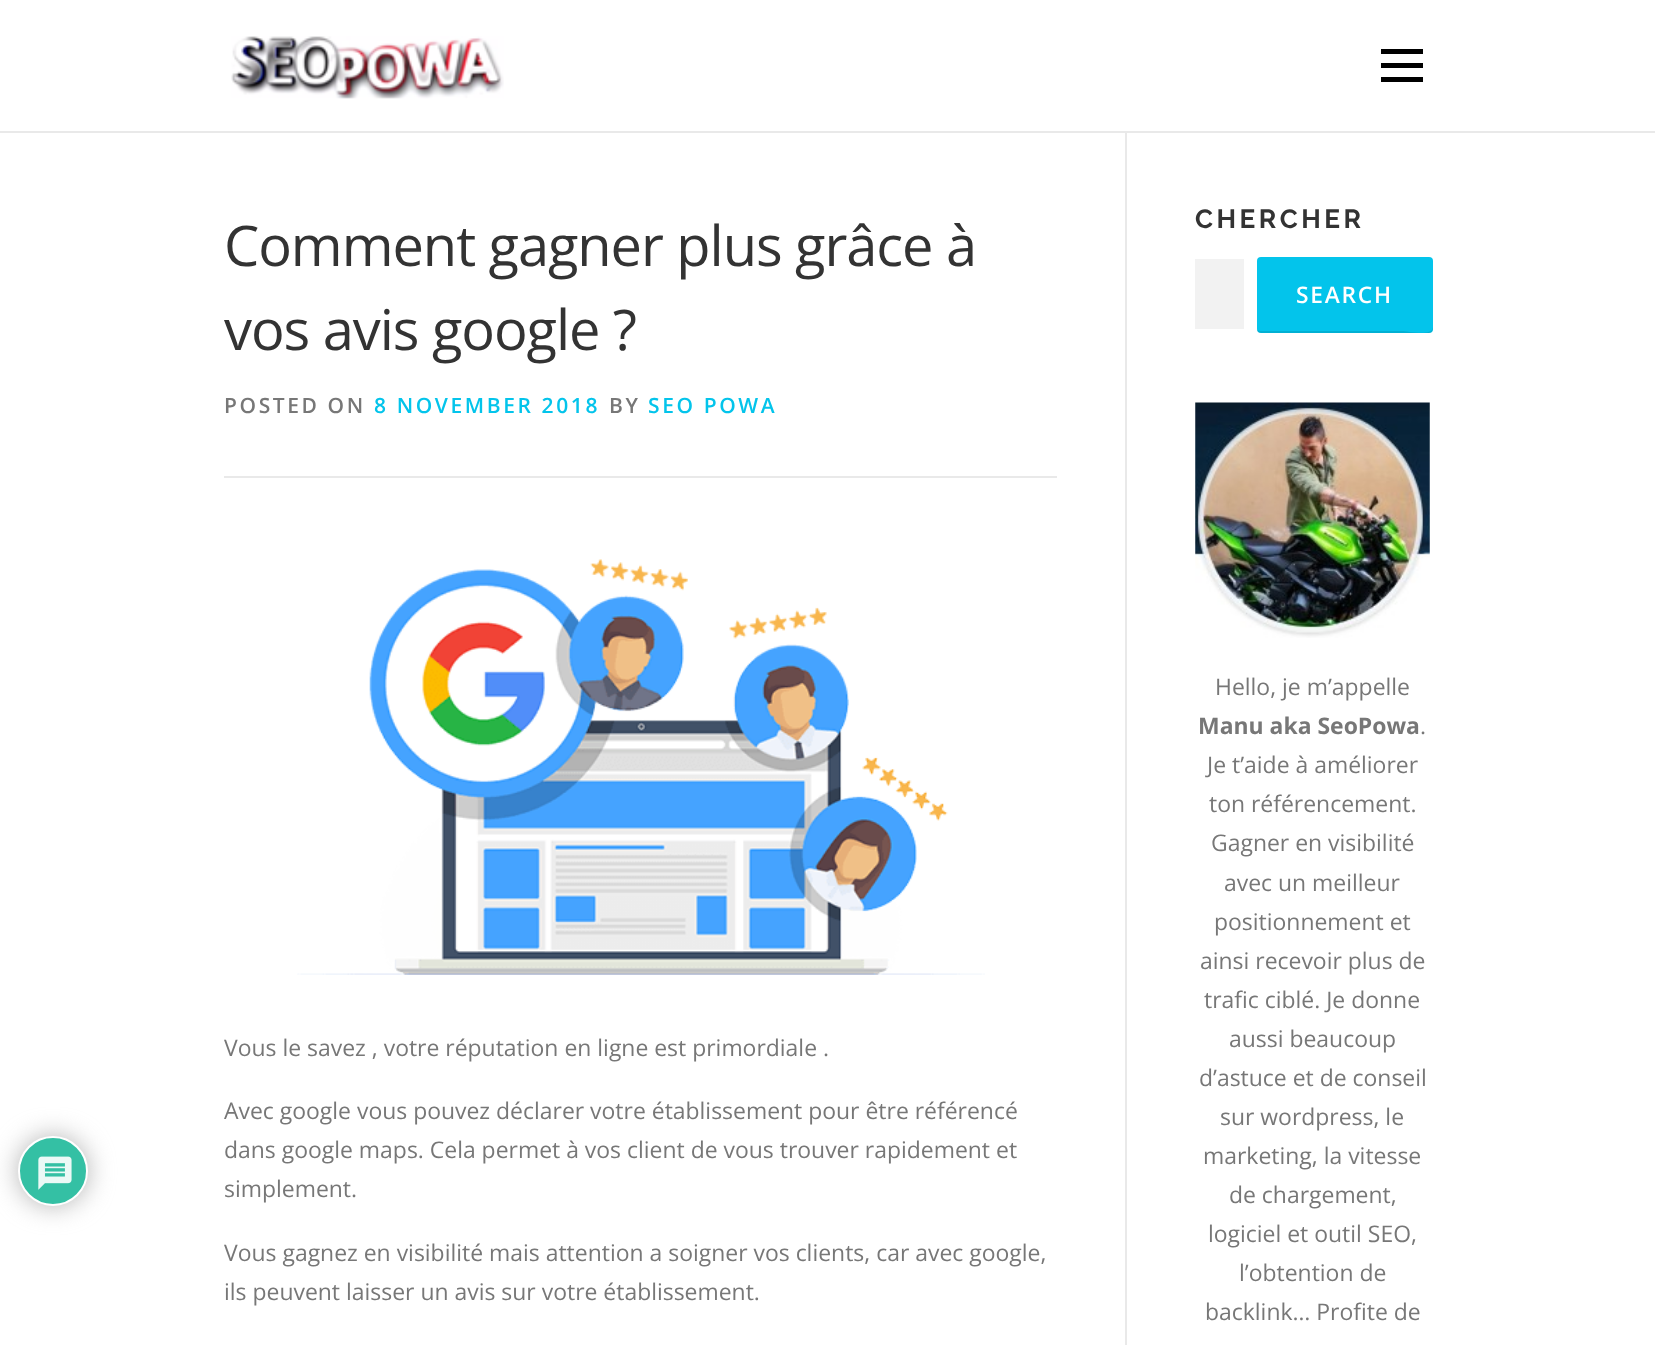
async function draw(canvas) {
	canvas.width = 1655;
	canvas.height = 1345;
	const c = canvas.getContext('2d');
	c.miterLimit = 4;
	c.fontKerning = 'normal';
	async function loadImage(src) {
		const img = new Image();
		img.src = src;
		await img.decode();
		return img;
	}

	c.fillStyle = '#fff';
	c.fillRect(0, 0, 1655, 1345);
	c.fillStyle = '#b3b3b3';
	c.filter = 'blur(13px)';
	c.beginPath();
	c.roundRect(18, 1136, 70, 70, 35);
	c.fill();
	c.filter = 'none';
	c.fillStyle = '#34c0a4';
	c.beginPath();
	c.arc(53, 1171, 34, 0, 2 * Math.PI);
	c.fill();
	c.strokeStyle = '#fff';
	c.lineWidth = 2;
	c.stroke();
	c.drawImage(await loadImage('img1.png'), 38, 1156, 34, 34);
	c.drawImage(await loadImage('img2.png'), 231, 36, 273, 63);
	for (const [x, y, w, h, color] of [
		[1381, 63, 42, 5, '#000'],
		[1381, 49, 42, 5, '#000'],
		[1381, 77, 42, 5, '#000'],
		[0, 131, 1655, 2, '#e9e9e9'],
		[1125, 133, 2, 1212, '#e9e9e9'],
	]) {
		c.fillStyle = color;
		c.fillRect(x, y, w, h);
	}
	c.letterSpacing = '-1.05px';
	c.font = '56px Open Sans';
	c.fillStyle = '#333';
	c.fillText('Comment gagner plus grâce à', 224, 266);
	c.fillText('vos avis google ?', 224, 350);
	c.fillStyle = '#e9e9e9';
	c.fillRect(224, 476, 833, 2);
	c.letterSpacing = '2.6px';
	c.font = '600 21px Open Sans';
	c.fillStyle = '#777';
	c.fillText('POSTED ON', 224, 413);
	c.fillStyle = '#03c4eb';
	c.fillText('8 NOVEMBER 2018', 374, 413);
	c.fillStyle = '#777';
	c.fillText('BY', 609, 413);
	c.fillStyle = '#03c4eb';
	c.fillText('SEO POWA', 648, 413);
	c.drawImage(await loadImage('img3.png'), 297, 559, 688, 416);
	c.letterSpacing = '0px';
	c.font = '22.95px Open Sans';
	c.fillStyle = '#777';
	for (const [text, x, y] of [
		['Vous le savez , votre réputation en ligne est primordiale .', 224, 1056],
		['Avec google vous pouvez déclarer votre établissement pour être référencé', 224, 1119],
		['dans google maps. Cela permet à vos client de vous trouver rapidement et', 224, 1158],
		['simplement.', 224, 1197],
		['Vous gagnez en visibilité mais attention a soigner vos clients, car avec google,', 224, 1261],
		['ils peuvent laisser un avis sur votre établissement.', 224, 1300],
	]) {
		c.fillText(text, x, y);
	}
	c.letterSpacing = '3.5px';
	c.font = 'bold 26.25px Raleway';
	c.fillStyle = '#333';
	c.fillText('CHERCHER', 1195, 228);
	c.fillStyle = '#f2f2f2';
	c.fillRect(1195, 259, 49, 70);
	c.fillStyle = '#03c4eb';
	c.beginPath();
	c.roundRect(1257, 257, 176, 76, 4);
	c.fill();
	c.fillStyle = '#0000001a';
	c.beginPath();
	c.moveTo(1257, 330);
	c.bezierCurveTo(1257, 331, 1259, 333, 1261, 333);
	c.lineTo(1429, 333);
	c.bezierCurveTo(1431, 333, 1433, 331, 1433, 329);
	c.lineTo(1433, 327);
	c.bezierCurveTo(1433, 337, 1407, 331, 1402, 331);
	c.lineTo(1260, 331);
	c.closePath();
	c.fill();
	c.letterSpacing = '1.75px';
	c.font = '600 22.75px Open Sans';
	c.fillStyle = '#fff';
	c.fillText('SEARCH', 1296, 303);
	c.drawImage(await loadImage('img4.png'), 1195, 402, 235, 236);
	c.letterSpacing = '0px';
	c.font = '22.95px Open Sans';
	c.fillStyle = '#777';
	c.fillText('Hello, je m’appelle', 1215, 695);
	c.font = 'bold 22.95px Open Sans';
	c.fillText('Manu aka SeoPowa', 1198, 734);
	c.font = '22.95px Open Sans';
	for (const [text, x, y] of [
		['.', 1420, 734],
		['Je t’aide à améliorer', 1207, 773],
		['ton référencement.', 1209, 812],
		['Gagner en visibilité', 1211, 851],
		['avec un meilleur', 1224, 891],
		['positionnement et', 1214, 930],
		['ainsi recevoir plus de', 1200, 969],
		['trafic ciblé. Je donne', 1204, 1008],
		['aussi beaucoup', 1229, 1047],
		['d’astuce et de conseil', 1199, 1086],
		['sur wordpress, le', 1220, 1125],
		['marketing, la vitesse', 1203, 1164],
		['de chargement,', 1229, 1203],
		['logiciel et outil SEO,', 1208, 1242],
		['l’obtention de', 1239, 1281],
		['backlink… Profite de', 1205, 1320],
	]) {
		c.fillText(text, x, y);
	}
}

draw(document.querySelector('canvas'));
